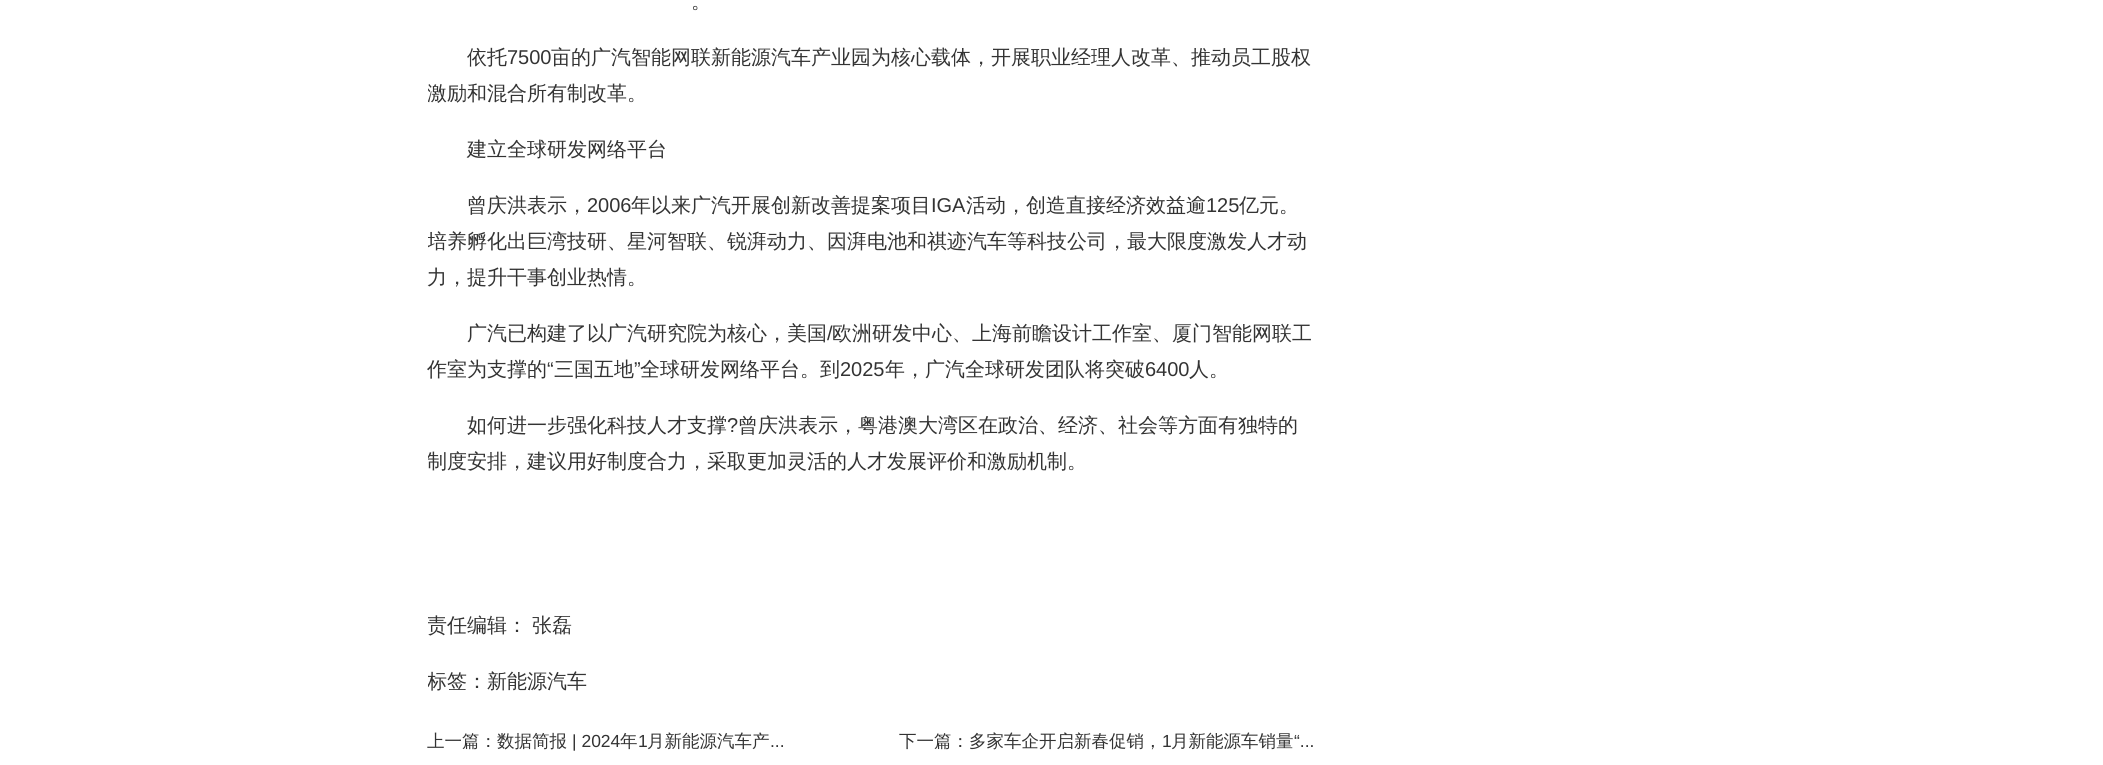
import math
import cairo

surface = cairo.ImageSurface(cairo.FORMAT_RGB24, 2103, 765)
ctx = cairo.Context(surface)
options = cairo.FontOptions()
options.set_hint_metrics(cairo.HINT_METRICS_OFF)
options.set_hint_style(cairo.HINT_STYLE_NONE)
ctx.set_font_options(options)
ctx.set_miter_limit(4)


ctx.set_source_rgb(1, 1, 1)
ctx.paint()
ctx.select_font_face("WenQuanYi Zen Hei Medium")
ctx.set_font_size(20)
ctx.set_source_rgb(0.2, 0.2, 0.2)
ctx.move_to(691, 8)
ctx.show_text("。")
ctx.move_to(467, 64)
ctx.show_text("依托")
ctx.select_font_face("Liberation Sans")
ctx.move_to(507, 64)
ctx.show_text("7500")
ctx.select_font_face("WenQuanYi Zen Hei Medium")
ctx.move_to(551, 64)
ctx.show_text("亩的广汽智能网联新能源汽车产业园为核心载体，开展职业经理人改革、推动员工股权")
ctx.save()
ctx.rectangle(428, 0, 1250, 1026)
ctx.clip()
ctx.move_to(427, 100)
ctx.show_text("激励和混合所有制改革。")
ctx.restore()
ctx.move_to(467, 156)
ctx.show_text("建立全球研发网络平台")
ctx.move_to(467, 212)
ctx.show_text("曾庆洪表示，")
ctx.select_font_face("Liberation Sans")
ctx.move_to(587, 212)
ctx.show_text("2006")
ctx.select_font_face("WenQuanYi Zen Hei Medium")
ctx.move_to(631, 212)
ctx.show_text("年以来广汽开展创新改善提案项目")
ctx.select_font_face("Liberation Sans")
ctx.move_to(931, 212)
ctx.show_text("IGA")
ctx.select_font_face("WenQuanYi Zen Hei Medium")
ctx.move_to(966, 212)
ctx.show_text("活动，创造直接经济效益逾")
ctx.select_font_face("Liberation Sans")
ctx.move_to(1206, 212)
ctx.show_text("125")
ctx.select_font_face("WenQuanYi Zen Hei Medium")
ctx.move_to(1239, 212)
ctx.show_text("亿元。")
ctx.save()
ctx.rectangle(428, 0, 1250, 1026)
ctx.clip()
ctx.move_to(427, 248)
ctx.show_text("培养孵化出巨湾技研、星河智联、锐湃动力、因湃电池和祺迹汽车等科技公司，最大限度激发人才动")
ctx.restore()
ctx.move_to(427, 284)
ctx.show_text("力，提升干事创业热情。")
ctx.move_to(467, 340)
ctx.show_text("广汽已构建了以广汽研究院为核心，美国")
ctx.select_font_face("Liberation Sans")
ctx.move_to(827, 340)
ctx.show_text("/")
ctx.select_font_face("WenQuanYi Zen Hei Medium")
ctx.move_to(832, 340)
ctx.show_text("欧洲研发中心、上海前瞻设计工作室、厦门智能网联工")
ctx.move_to(427, 376)
ctx.show_text("作室为支撑的")
ctx.select_font_face("Liberation Sans")
ctx.move_to(547, 376)
ctx.show_text("“")
ctx.select_font_face("WenQuanYi Zen Hei Medium")
ctx.move_to(554, 376)
ctx.show_text("三国五地")
ctx.select_font_face("Liberation Sans")
ctx.move_to(634, 376)
ctx.show_text("”")
ctx.select_font_face("WenQuanYi Zen Hei Medium")
ctx.move_to(640, 376)
ctx.show_text("全球研发网络平台。到")
ctx.select_font_face("Liberation Sans")
ctx.move_to(840, 376)
ctx.show_text("2025")
ctx.select_font_face("WenQuanYi Zen Hei Medium")
ctx.move_to(885, 376)
ctx.show_text("年，广汽全球研发团队将突破")
ctx.select_font_face("Liberation Sans")
ctx.move_to(1145, 376)
ctx.show_text("6400")
ctx.select_font_face("WenQuanYi Zen Hei Medium")
ctx.move_to(1189, 376)
ctx.show_text("人。")
ctx.move_to(467, 432)
ctx.show_text("如何进一步强化科技人才支撑")
ctx.select_font_face("Liberation Sans")
ctx.move_to(727, 432)
ctx.show_text("?")
ctx.select_font_face("WenQuanYi Zen Hei Medium")
ctx.move_to(738, 432)
ctx.show_text("曾庆洪表示，粤港澳大湾区在政治、经济、社会等方面有独特的")
ctx.save()
ctx.rectangle(428, 0, 1250, 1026)
ctx.clip()
ctx.move_to(427, 468)
ctx.show_text("制度安排，建议用好制度合力，采取更加灵活的人才发展评价和激励机制。")
ctx.move_to(427, 632)
ctx.show_text("责任编辑：")
ctx.restore()
ctx.move_to(532, 632)
ctx.show_text("张磊")
ctx.save()
ctx.rectangle(428, 0, 1250, 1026)
ctx.clip()
ctx.move_to(427, 688)
ctx.show_text("标签：新能源汽车")
ctx.restore()
ctx.set_font_size(17.5)
ctx.move_to(427, 747)
ctx.show_text("上一篇：数据简报")
ctx.select_font_face("Liberation Sans")
ctx.move_to(572, 747)
ctx.show_text("| 2024")
ctx.select_font_face("WenQuanYi Zen Hei Medium")
ctx.move_to(620, 747)
ctx.show_text("年")
ctx.select_font_face("Liberation Sans")
ctx.move_to(638, 747)
ctx.show_text("1")
ctx.select_font_face("WenQuanYi Zen Hei Medium")
ctx.move_to(647, 747)
ctx.show_text("月新能源汽车产")
ctx.select_font_face("Liberation Sans")
ctx.move_to(770, 747)
ctx.show_text("...")
ctx.select_font_face("WenQuanYi Zen Hei Medium")
ctx.move_to(899, 747)
ctx.show_text("下一篇：多家车企开启新春促销，")
ctx.select_font_face("Liberation Sans")
ctx.move_to(1162, 747)
ctx.show_text("1")
ctx.select_font_face("WenQuanYi Zen Hei Medium")
ctx.move_to(1171, 747)
ctx.show_text("月新能源车销量")
ctx.select_font_face("Liberation Sans")
ctx.move_to(1294, 747)
ctx.show_text("“...")
surface.write_to_png("page.png")
